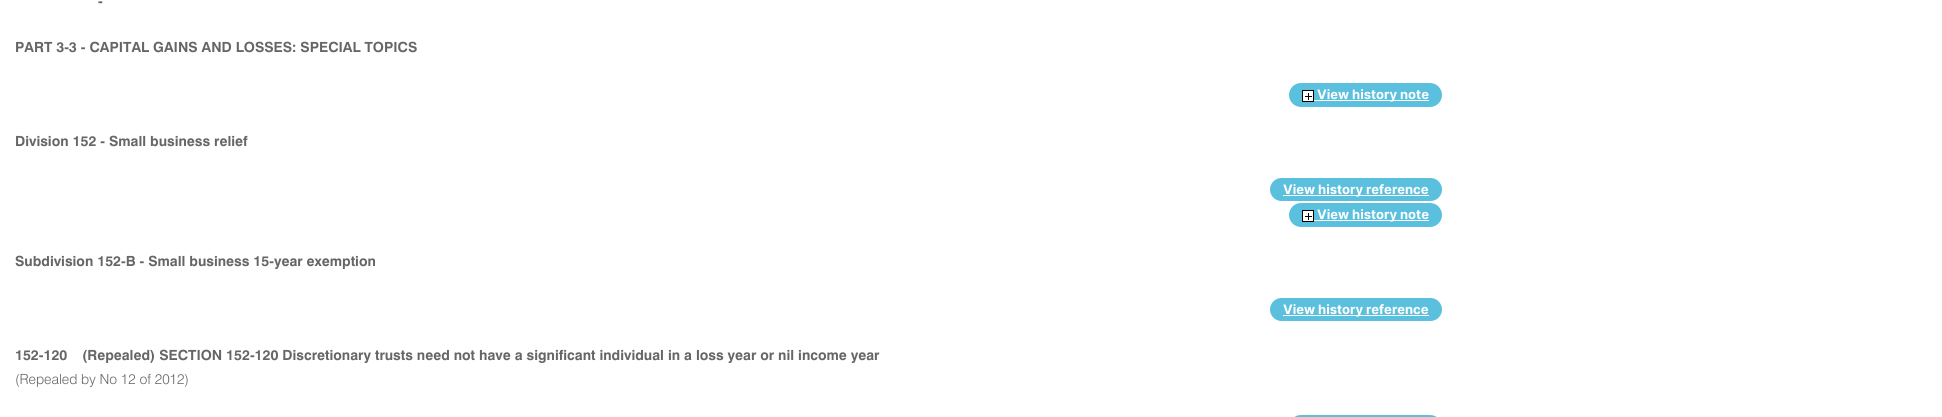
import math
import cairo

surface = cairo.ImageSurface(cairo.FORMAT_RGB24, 1942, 417)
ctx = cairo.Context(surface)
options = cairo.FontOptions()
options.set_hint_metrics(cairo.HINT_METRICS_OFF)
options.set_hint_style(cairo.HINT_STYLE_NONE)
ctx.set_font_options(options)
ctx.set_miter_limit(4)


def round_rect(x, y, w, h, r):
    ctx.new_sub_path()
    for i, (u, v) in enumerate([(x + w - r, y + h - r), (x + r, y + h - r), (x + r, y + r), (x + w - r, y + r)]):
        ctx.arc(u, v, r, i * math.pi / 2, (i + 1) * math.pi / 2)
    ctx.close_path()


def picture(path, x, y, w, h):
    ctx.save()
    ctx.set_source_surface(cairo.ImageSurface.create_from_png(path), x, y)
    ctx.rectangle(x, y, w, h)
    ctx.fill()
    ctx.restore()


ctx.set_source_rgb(1, 1, 1)
ctx.paint()
ctx.select_font_face("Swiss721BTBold", cairo.FONT_SLANT_NORMAL, cairo.FONT_WEIGHT_BOLD)
ctx.set_font_size(14)
ctx.set_source_rgb(0.4, 0.4, 0.4)
ctx.move_to(98, 6)
ctx.show_text("-")
ctx.move_to(15, 52)
ctx.show_text("PART 3-3 - CAPITAL GAINS AND LOSSES: SPECIAL TOPICS")
ctx.set_source_rgb(0.357, 0.753, 0.871)
round_rect(1289, 83, 153, 24, 12)
ctx.fill()
picture("img1.png", 1302, 90, 12, 12)
ctx.set_source_rgb(1, 1, 1)
ctx.rectangle(1314, 100, 115, 1)
ctx.fill()
ctx.select_font_face("Inter", cairo.FONT_SLANT_NORMAL, cairo.FONT_WEIGHT_BOLD)
ctx.set_font_size(13)
ctx.move_to(1317, 99)
ctx.show_text("View history note")
ctx.select_font_face("Swiss721BTBold", cairo.FONT_SLANT_NORMAL, cairo.FONT_WEIGHT_BOLD)
ctx.set_font_size(14)
ctx.set_source_rgb(0.4, 0.4, 0.4)
ctx.move_to(15, 146)
ctx.show_text("Division 152 - Small business relief")
ctx.set_source_rgb(0.357, 0.753, 0.871)
round_rect(1270, 178, 172, 23, 11.5)
ctx.fill()
ctx.set_source_rgb(1, 1, 1)
ctx.rectangle(1283, 195, 146, 1)
ctx.fill()
ctx.select_font_face("Inter", cairo.FONT_SLANT_NORMAL, cairo.FONT_WEIGHT_BOLD)
ctx.set_font_size(13)
ctx.move_to(1283, 194)
ctx.show_text("View history reference")
ctx.set_source_rgb(0.357, 0.753, 0.871)
round_rect(1289, 203, 153, 24, 12)
ctx.fill()
picture("img1.png", 1302, 210, 12, 12)
ctx.set_source_rgb(1, 1, 1)
ctx.rectangle(1314, 220, 115, 1)
ctx.fill()
ctx.move_to(1317, 219)
ctx.show_text("View history note")
ctx.select_font_face("Swiss721BTBold", cairo.FONT_SLANT_NORMAL, cairo.FONT_WEIGHT_BOLD)
ctx.set_font_size(14)
ctx.set_source_rgb(0.4, 0.4, 0.4)
ctx.move_to(15, 266)
ctx.show_text("Subdivision 152-B - Small business 15-year exemption")
ctx.set_source_rgb(0.357, 0.753, 0.871)
round_rect(1270, 298, 172, 23, 11.5)
ctx.fill()
ctx.set_source_rgb(1, 1, 1)
ctx.rectangle(1283, 315, 146, 1)
ctx.fill()
ctx.select_font_face("Inter", cairo.FONT_SLANT_NORMAL, cairo.FONT_WEIGHT_BOLD)
ctx.set_font_size(13)
ctx.move_to(1283, 314)
ctx.show_text("View history reference")
ctx.select_font_face("Swiss721BTBold", cairo.FONT_SLANT_NORMAL, cairo.FONT_WEIGHT_BOLD)
ctx.set_font_size(14)
ctx.set_source_rgb(0.4, 0.4, 0.4)
ctx.move_to(15, 360)
ctx.show_text("152-120")
ctx.move_to(82, 360)
ctx.show_text("(Repealed) SECTION 152-120 Discretionary trusts need not have a significant individual in a loss year or nil income year")
ctx.select_font_face("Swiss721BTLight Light")
ctx.move_to(15, 384)
ctx.show_text("(Repealed by No 12 of 2012)")
ctx.set_source_rgb(0.357, 0.753, 0.871)
round_rect(1289, 415, 153, 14, 12)
ctx.fill()
surface.write_to_png("page.png")
